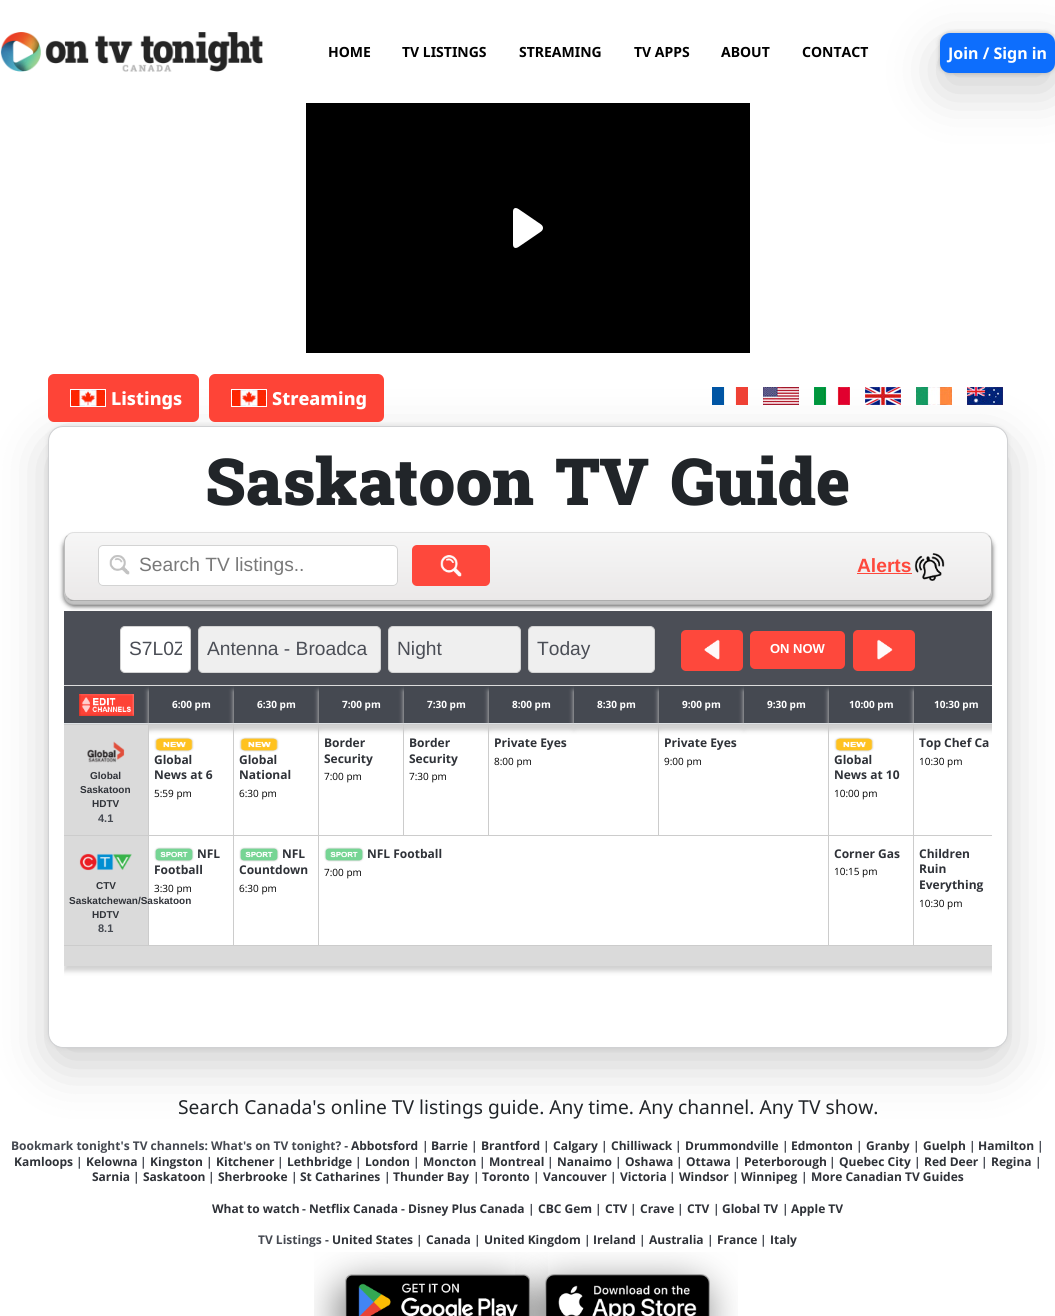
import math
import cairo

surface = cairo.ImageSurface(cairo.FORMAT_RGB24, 1055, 1316)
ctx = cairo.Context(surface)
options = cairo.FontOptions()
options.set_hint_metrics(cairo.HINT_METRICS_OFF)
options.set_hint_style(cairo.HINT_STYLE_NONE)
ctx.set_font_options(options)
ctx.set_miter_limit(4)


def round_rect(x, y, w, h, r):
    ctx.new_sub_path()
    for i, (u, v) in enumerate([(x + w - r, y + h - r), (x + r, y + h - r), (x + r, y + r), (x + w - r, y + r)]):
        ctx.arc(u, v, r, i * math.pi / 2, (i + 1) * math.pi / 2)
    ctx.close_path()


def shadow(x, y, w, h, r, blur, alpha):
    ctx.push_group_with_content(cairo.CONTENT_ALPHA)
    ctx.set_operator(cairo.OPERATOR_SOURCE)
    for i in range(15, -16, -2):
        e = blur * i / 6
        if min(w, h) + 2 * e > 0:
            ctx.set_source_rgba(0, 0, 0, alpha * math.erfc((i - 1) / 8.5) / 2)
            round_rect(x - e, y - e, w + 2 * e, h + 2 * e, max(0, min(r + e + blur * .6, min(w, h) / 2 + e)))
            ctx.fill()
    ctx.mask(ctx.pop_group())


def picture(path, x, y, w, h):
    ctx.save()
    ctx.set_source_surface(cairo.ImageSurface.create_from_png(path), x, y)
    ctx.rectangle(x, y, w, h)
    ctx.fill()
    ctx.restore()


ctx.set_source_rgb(1, 1, 1)
ctx.paint()
picture("img1.png", 0, 32, 263, 40)
ctx.select_font_face("Noto Sans", cairo.FONT_SLANT_NORMAL, cairo.FONT_WEIGHT_BOLD)
ctx.set_font_size(14)
ctx.set_source_rgb(0, 0, 0)
ctx.move_to(328, 57)
ctx.show_text("HOME")
ctx.move_to(402, 57)
ctx.show_text("TV LISTINGS")
ctx.move_to(519, 57)
ctx.show_text("STREAMING")
ctx.move_to(634, 57)
ctx.show_text("TV APPS")
ctx.move_to(721, 57)
ctx.show_text("ABOUT")
ctx.move_to(802, 57)
ctx.show_text("CONTACT")
ctx.set_source_rgb(0, 0, 0)
shadow(940, 50, 115, 40, 10, 25, 0.19)
shadow(940, 33, 115, 40, 10, 2.5, 0.24)
ctx.set_source_rgb(0.051, 0.431, 0.992)
round_rect(940, 33, 115, 40, 10)
ctx.fill()
ctx.set_font_size(16)
ctx.set_source_rgb(1, 1, 1)
ctx.move_to(948, 59)
ctx.show_text("Join / Sign in")
ctx.set_source_rgb(0, 0, 0)
ctx.rectangle(306, 103, 444, 250)
ctx.fill()
picture("img2.png", 513, 208, 30, 40)
ctx.set_source_rgb(0, 0, 0)
shadow(48, 443, 960, 622, 15, 25, 0.19)
shadow(48, 426, 960, 622, 15, 2.5, 0.09)
ctx.set_source_rgb(0.996, 0.267, 0.216)
round_rect(48, 374, 151, 48, 6)
ctx.fill()
ctx.rectangle(70.5, 389.5, 35, 17)
ctx.set_source_rgb(1, 1, 1)
ctx.set_line_width(1)
ctx.stroke()
picture("img3.png", 71, 390, 34, 16)
ctx.select_font_face("Noto Sans ExtraBold")
ctx.set_font_size(18)
ctx.move_to(111, 405)
ctx.show_text("Listings")
ctx.set_source_rgb(0.996, 0.267, 0.216)
round_rect(209, 374, 175, 48, 6)
ctx.fill()
ctx.rectangle(231.5, 389.5, 35, 17)
ctx.set_source_rgb(1, 1, 1)
ctx.stroke()
picture("img3.png", 232, 390, 34, 16)
ctx.move_to(272, 405)
ctx.show_text("Streaming")
picture("img4.png", 712, 387, 36, 18)
picture("img5.png", 763, 387, 36, 18)
picture("img6.png", 814, 387, 36, 18)
picture("img7.png", 865, 387, 36, 18)
picture("img8.png", 916, 387, 36, 18)
picture("img9.png", 967, 387, 36, 18)
round_rect(48.5, 426.5, 959, 621, 14.5)
ctx.fill_preserve()
ctx.set_source_rgb(0.816, 0.82, 0.827)
ctx.stroke()
ctx.select_font_face("Suwannaphum Black")
ctx.set_font_size(65)
ctx.set_source_rgb(0.129, 0.145, 0.161)
ctx.move_to(205, 505)
ctx.show_text("Saskatoon TV Guide")
ctx.set_source_rgb(0.29, 0.29, 0.29)
shadow(64, 537, 928, 69, 10, 2.5, 1)
ctx.set_source_rgb(0.678, 0.678, 0.678)
ctx.new_path()
ctx.move_to(64, 591)
ctx.curve_to(64, 598, 65, 605, 74, 605)
ctx.line_to(982, 605)
ctx.curve_to(991, 605, 992, 598, 992, 591)
ctx.curve_to(992, 597, 988, 601, 982, 601)
ctx.line_to(74, 601)
ctx.curve_to(68, 601, 64, 597, 64, 591)
ctx.close_path()
ctx.fill()
ctx.set_source_rgb(0.741, 0.741, 0.741)
ctx.new_path()
ctx.move_to(64, 591)
ctx.line_to(64, 594)
ctx.curve_to(64, 600, 68, 604, 74, 604)
ctx.line_to(982, 604)
ctx.curve_to(988, 604, 992, 600, 992, 594)
ctx.line_to(992, 591)
ctx.curve_to(992, 597, 988, 601, 982, 601)
ctx.line_to(74, 601)
ctx.curve_to(68, 601, 64, 597, 64, 591)
ctx.close_path()
ctx.fill()
ctx.set_source_rgb(1, 1, 1)
shadow(64, 535, 928, 69, 10, 1.5, 0.1)
ctx.save()
round_rect(64, 532, 928, 69, 10)
ctx.clip()
gradient = cairo.LinearGradient(528, 533, 528, 600)
gradient.add_color_stop_rgba(0, 0.965, 0.965, 0.965, 1)
gradient.add_color_stop_rgba(1, 0.922, 0.914, 0.914, 1)
ctx.set_source(gradient)
ctx.rectangle(64, 533, 928, 67)
ctx.fill()
ctx.restore()
ctx.new_path()
ctx.move_to(67.5, 535.5)
ctx.curve_to(69, 533.5, 71.5, 532.5, 74, 532.5)
ctx.line_to(982, 532.5)
ctx.curve_to(984.5, 532.5, 987, 533.5, 988.5, 535.5)
ctx.set_source_rgb(0.875, 0.875, 0.875)
ctx.stroke()
ctx.new_path()
ctx.move_to(988.5, 535.5)
ctx.curve_to(990.5, 537, 991.5, 539.5, 991.5, 542)
ctx.line_to(991.5, 591)
ctx.curve_to(991.5, 593.5, 990.5, 596, 988.5, 597.5)
ctx.set_source_rgb(0.737, 0.737, 0.737)
ctx.stroke()
ctx.new_path()
ctx.move_to(988.5, 597.5)
ctx.curve_to(987, 599.5, 984.5, 600.5, 982, 600.5)
ctx.line_to(74, 600.5)
ctx.curve_to(71.5, 600.5, 69, 599.5, 67.5, 597.5)
ctx.set_source_rgb(0.678, 0.678, 0.678)
ctx.stroke()
ctx.new_path()
ctx.move_to(67.5, 597.5)
ctx.curve_to(65.5, 596, 64.5, 593.5, 64.5, 591)
ctx.line_to(64.5, 542)
ctx.curve_to(64.5, 539.5, 65.5, 537, 67.5, 535.5)
ctx.set_source_rgb(0.737, 0.737, 0.737)
ctx.stroke()
ctx.set_source_rgb(1, 1, 1)
round_rect(98, 545, 300, 41, 5)
ctx.fill()
picture("img10.png", 109, 555, 21, 20)
round_rect(98.5, 545.5, 299, 40, 4.5)
ctx.set_source_rgb(0.827, 0.827, 0.827)
ctx.stroke()
ctx.select_font_face("Liberation Sans")
ctx.set_font_size(19.2)
ctx.set_source_rgb(0.475, 0.475, 0.475)
ctx.move_to(139, 571)
ctx.show_text("Search TV listings..")
ctx.set_source_rgb(0.996, 0.282, 0.235)
round_rect(412, 545, 78, 41, 5)
ctx.fill()
picture("img11.png", 440, 555, 22, 22)
ctx.select_font_face("Liberation Sans", cairo.FONT_SLANT_NORMAL, cairo.FONT_WEIGHT_BOLD)
ctx.move_to(857, 572)
ctx.show_text("Alerts")
ctx.rectangle(857, 573, 55, 1)
ctx.fill()
picture("img12.png", 914, 553, 31, 28)
ctx.set_source_rgb(0.294, 0.306, 0.337)
ctx.rectangle(64, 611, 928, 74)
ctx.fill()
ctx.set_source_rgb(1, 1, 1)
round_rect(120.5, 626.5, 70, 46, 4.5)
ctx.fill_preserve()
ctx.set_source_rgb(0.827, 0.827, 0.827)
ctx.stroke()
ctx.save()
ctx.rectangle(129, 635, 53, 29)
ctx.clip()
ctx.select_font_face("Liberation Sans")
ctx.set_source_rgb(0.294, 0.306, 0.337)
ctx.move_to(129, 655)
ctx.show_text("S7L0Z")
ctx.restore()
ctx.set_source_rgb(0.937, 0.937, 0.937)
round_rect(198.5, 626.5, 182, 46, 4.5)
ctx.fill_preserve()
ctx.set_source_rgb(0.827, 0.827, 0.827)
ctx.stroke()
ctx.select_font_face("Liberation Sans")
ctx.set_source_rgb(0.294, 0.306, 0.337)
ctx.move_to(207, 655)
ctx.show_text("Antenna - Broadca")
ctx.set_source_rgb(0.937, 0.937, 0.937)
round_rect(388.5, 626.5, 132, 46, 4.5)
ctx.fill_preserve()
ctx.set_source_rgb(0.827, 0.827, 0.827)
ctx.stroke()
ctx.set_source_rgb(0.294, 0.306, 0.337)
ctx.move_to(397, 655)
ctx.show_text("Night")
ctx.set_source_rgb(0.937, 0.937, 0.937)
round_rect(528.5, 626.5, 126, 46, 4.5)
ctx.fill_preserve()
ctx.set_source_rgb(0.827, 0.827, 0.827)
ctx.stroke()
ctx.set_source_rgb(0.294, 0.306, 0.337)
ctx.move_to(537, 655)
ctx.show_text("Today")
ctx.set_source_rgb(0.996, 0.282, 0.235)
round_rect(681, 630, 62, 41, 5)
ctx.fill()
picture("img13.png", 704, 639, 16, 21)
round_rect(750, 631, 95, 38, 5)
ctx.fill()
ctx.select_font_face("Liberation Sans", cairo.FONT_SLANT_NORMAL, cairo.FONT_WEIGHT_BOLD)
ctx.set_font_size(13)
ctx.set_source_rgb(1, 1, 1)
ctx.move_to(770, 653)
ctx.show_text("ON NOW")
ctx.set_source_rgb(0.996, 0.282, 0.235)
round_rect(853, 630, 62, 41, 5)
ctx.fill()
picture("img14.png", 877, 639, 16, 21)
ctx.set_source_rgb(0.867, 0.867, 0.867)
ctx.rectangle(64, 685, 928, 1)
ctx.fill()
ctx.save()
ctx.rectangle(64, 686, 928, 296)
ctx.clip()
ctx.rectangle(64, 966, 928, 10)
ctx.clip()
ctx.set_source_rgb(0.816, 0.816, 0.816)
shadow(64, 691, 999, 280, 0, 2.5, 1)
ctx.restore()
ctx.save()
ctx.rectangle(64, 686, 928, 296)
ctx.clip()
ctx.set_source_rgb(0.816, 0.816, 0.816)
shadow(64, 691, 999, 38, 0, 2.5, 1)
shadow(64, 691, 85, 38, 0, 2.5, 1)
ctx.restore()
ctx.set_source_rgb(0.271, 0.286, 0.318)
ctx.rectangle(64, 686, 85, 37)
ctx.fill()
ctx.set_source_rgb(0.871, 0.886, 0.902)
ctx.rectangle(64, 723, 85, 1)
ctx.fill()
picture("img15.png", 79, 694, 55, 22)
ctx.set_source_rgb(0.816, 0.816, 0.816)
shadow(149, 691, 85, 38, 0, 2.5, 1)
ctx.set_source_rgb(0.271, 0.286, 0.318)
ctx.rectangle(149, 686, 85, 37)
ctx.fill()
ctx.set_source_rgb(0.871, 0.886, 0.902)
ctx.rectangle(149, 723, 85, 1)
ctx.fill()
ctx.select_font_face("Open Sans", cairo.FONT_SLANT_NORMAL, cairo.FONT_WEIGHT_BOLD)
ctx.set_font_size(10)
ctx.set_source_rgb(1, 1, 1)
ctx.move_to(172, 708)
ctx.show_text("6:00 pm")
ctx.set_source_rgb(0.816, 0.816, 0.816)
shadow(234, 691, 85, 38, 0, 2.5, 1)
ctx.set_source_rgb(0.271, 0.286, 0.318)
ctx.rectangle(234, 686, 85, 37)
ctx.fill()
ctx.set_source_rgb(0.871, 0.886, 0.902)
ctx.rectangle(234, 723, 85, 1)
ctx.fill()
ctx.set_source_rgb(1, 1, 1)
ctx.move_to(257, 708)
ctx.show_text("6:30 pm")
ctx.set_source_rgb(0.816, 0.816, 0.816)
shadow(319, 691, 85, 38, 0, 2.5, 1)
ctx.set_source_rgb(0.271, 0.286, 0.318)
ctx.rectangle(319, 686, 85, 37)
ctx.fill()
ctx.set_source_rgb(0.871, 0.886, 0.902)
ctx.rectangle(319, 723, 85, 1)
ctx.fill()
ctx.set_source_rgb(1, 1, 1)
ctx.move_to(342, 708)
ctx.show_text("7:00 pm")
ctx.set_source_rgb(0.816, 0.816, 0.816)
shadow(404, 691, 85, 38, 0, 2.5, 1)
ctx.set_source_rgb(0.271, 0.286, 0.318)
ctx.rectangle(404, 686, 85, 37)
ctx.fill()
ctx.set_source_rgb(0.871, 0.886, 0.902)
ctx.rectangle(404, 723, 85, 1)
ctx.fill()
ctx.set_source_rgb(1, 1, 1)
ctx.move_to(427, 708)
ctx.show_text("7:30 pm")
ctx.set_source_rgb(0.816, 0.816, 0.816)
shadow(489, 691, 85, 38, 0, 2.5, 1)
ctx.set_source_rgb(0.271, 0.286, 0.318)
ctx.rectangle(489, 686, 85, 37)
ctx.fill()
ctx.set_source_rgb(0.871, 0.886, 0.902)
ctx.rectangle(489, 723, 85, 1)
ctx.fill()
ctx.set_source_rgb(1, 1, 1)
ctx.move_to(512, 708)
ctx.show_text("8:00 pm")
ctx.set_source_rgb(0.816, 0.816, 0.816)
shadow(574, 691, 85, 38, 0, 2.5, 1)
ctx.set_source_rgb(0.271, 0.286, 0.318)
ctx.rectangle(574, 686, 85, 37)
ctx.fill()
ctx.set_source_rgb(0.871, 0.886, 0.902)
ctx.rectangle(574, 723, 85, 1)
ctx.fill()
ctx.set_source_rgb(1, 1, 1)
ctx.move_to(597, 708)
ctx.show_text("8:30 pm")
ctx.set_source_rgb(0.816, 0.816, 0.816)
shadow(659, 691, 85, 38, 0, 2.5, 1)
ctx.set_source_rgb(0.271, 0.286, 0.318)
ctx.rectangle(659, 686, 85, 37)
ctx.fill()
ctx.set_source_rgb(0.871, 0.886, 0.902)
ctx.rectangle(659, 723, 85, 1)
ctx.fill()
ctx.set_source_rgb(1, 1, 1)
ctx.move_to(682, 708)
ctx.show_text("9:00 pm")
ctx.set_source_rgb(0.816, 0.816, 0.816)
shadow(744, 691, 85, 38, 0, 2.5, 1)
ctx.set_source_rgb(0.271, 0.286, 0.318)
ctx.rectangle(744, 686, 85, 37)
ctx.fill()
ctx.set_source_rgb(0.871, 0.886, 0.902)
ctx.rectangle(744, 723, 85, 1)
ctx.fill()
ctx.set_source_rgb(1, 1, 1)
ctx.move_to(767, 708)
ctx.show_text("9:30 pm")
ctx.set_source_rgb(0.816, 0.816, 0.816)
shadow(829, 691, 85, 38, 0, 2.5, 1)
ctx.set_source_rgb(0.271, 0.286, 0.318)
ctx.rectangle(829, 686, 85, 37)
ctx.fill()
ctx.set_source_rgb(0.871, 0.886, 0.902)
ctx.rectangle(829, 723, 85, 1)
ctx.fill()
ctx.set_source_rgb(1, 1, 1)
ctx.move_to(849, 708)
ctx.show_text("10:00 pm")
ctx.save()
ctx.rectangle(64, 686, 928, 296)
ctx.clip()
ctx.set_source_rgb(0.816, 0.816, 0.816)
shadow(914, 691, 85, 38, 0, 2.5, 1)
ctx.restore()
ctx.set_source_rgb(0.271, 0.286, 0.318)
ctx.rectangle(914, 686, 78, 37)
ctx.fill()
ctx.set_source_rgb(0.871, 0.886, 0.902)
ctx.rectangle(914, 723, 78, 1)
ctx.fill()
ctx.set_source_rgb(1, 1, 1)
ctx.move_to(934, 708)
ctx.show_text("10:30 pm")
ctx.set_source_rgb(0.855, 0.855, 0.855)
ctx.rectangle(64, 725, 84, 110)
ctx.fill()
ctx.set_source_rgb(0.8, 0.8, 0.8)
ctx.rectangle(64, 724, 928, 1)
ctx.fill()
ctx.rectangle(148, 724, 1, 111)
ctx.fill()
picture("img16.png", 87, 741, 38, 22)
ctx.select_font_face("Liberation Sans", cairo.FONT_SLANT_NORMAL, cairo.FONT_WEIGHT_BOLD)
ctx.set_source_rgb(0.184, 0.196, 0.22)
ctx.move_to(90, 779)
ctx.show_text("Global")
ctx.move_to(80, 793)
ctx.show_text("Saskatoon")
ctx.move_to(92, 807)
ctx.show_text("HDTV")
ctx.set_font_size(11)
ctx.set_source_rgb(0.271, 0.286, 0.318)
ctx.move_to(98, 822)
ctx.show_text("4.1")
ctx.set_source_rgb(0.8, 0.8, 0.8)
ctx.rectangle(233, 724, 1, 111)
ctx.fill()
picture("img17.png", 154, 737, 40, 15)
ctx.select_font_face("Open Sans", cairo.FONT_SLANT_NORMAL, cairo.FONT_WEIGHT_BOLD)
ctx.set_font_size(12)
ctx.set_source_rgb(0.184, 0.196, 0.22)
ctx.move_to(154, 764)
ctx.show_text("Global")
ctx.move_to(154, 779)
ctx.show_text("News at 6")
ctx.select_font_face("Open Sans")
ctx.set_font_size(10)
ctx.set_source_rgb(0, 0, 0)
ctx.move_to(154, 797)
ctx.show_text("5:59 pm")
ctx.set_source_rgb(0.8, 0.8, 0.8)
ctx.rectangle(318, 724, 1, 111)
ctx.fill()
picture("img17.png", 239, 737, 40, 15)
ctx.select_font_face("Open Sans", cairo.FONT_SLANT_NORMAL, cairo.FONT_WEIGHT_BOLD)
ctx.set_font_size(12)
ctx.set_source_rgb(0.184, 0.196, 0.22)
ctx.move_to(239, 764)
ctx.show_text("Global")
ctx.move_to(239, 779)
ctx.show_text("National")
ctx.select_font_face("Open Sans")
ctx.set_font_size(10)
ctx.set_source_rgb(0, 0, 0)
ctx.move_to(239, 797)
ctx.show_text("6:30 pm")
ctx.set_source_rgb(0.8, 0.8, 0.8)
ctx.rectangle(403, 724, 1, 111)
ctx.fill()
ctx.select_font_face("Open Sans", cairo.FONT_SLANT_NORMAL, cairo.FONT_WEIGHT_BOLD)
ctx.set_font_size(12)
ctx.set_source_rgb(0.184, 0.196, 0.22)
ctx.move_to(324, 747)
ctx.show_text("Border")
ctx.move_to(324, 763)
ctx.show_text("Security")
ctx.select_font_face("Open Sans")
ctx.set_font_size(10)
ctx.set_source_rgb(0, 0, 0)
ctx.move_to(324, 780)
ctx.show_text("7:00 pm")
ctx.set_source_rgb(0.8, 0.8, 0.8)
ctx.rectangle(488, 724, 1, 111)
ctx.fill()
ctx.select_font_face("Open Sans", cairo.FONT_SLANT_NORMAL, cairo.FONT_WEIGHT_BOLD)
ctx.set_font_size(12)
ctx.set_source_rgb(0.184, 0.196, 0.22)
ctx.move_to(409, 747)
ctx.show_text("Border")
ctx.move_to(409, 763)
ctx.show_text("Security")
ctx.select_font_face("Open Sans")
ctx.set_font_size(10)
ctx.set_source_rgb(0, 0, 0)
ctx.move_to(409, 780)
ctx.show_text("7:30 pm")
ctx.set_source_rgb(0.8, 0.8, 0.8)
ctx.rectangle(658, 724, 1, 111)
ctx.fill()
ctx.select_font_face("Open Sans", cairo.FONT_SLANT_NORMAL, cairo.FONT_WEIGHT_BOLD)
ctx.set_font_size(12)
ctx.set_source_rgb(0.184, 0.196, 0.22)
ctx.move_to(494, 747)
ctx.show_text("Private Eyes")
ctx.select_font_face("Open Sans")
ctx.set_font_size(10)
ctx.set_source_rgb(0, 0, 0)
ctx.move_to(494, 765)
ctx.show_text("8:00 pm")
ctx.set_source_rgb(0.8, 0.8, 0.8)
ctx.rectangle(828, 724, 1, 111)
ctx.fill()
ctx.select_font_face("Open Sans", cairo.FONT_SLANT_NORMAL, cairo.FONT_WEIGHT_BOLD)
ctx.set_font_size(12)
ctx.set_source_rgb(0.184, 0.196, 0.22)
ctx.move_to(664, 747)
ctx.show_text("Private Eyes")
ctx.select_font_face("Open Sans")
ctx.set_font_size(10)
ctx.set_source_rgb(0, 0, 0)
ctx.move_to(664, 765)
ctx.show_text("9:00 pm")
ctx.set_source_rgb(0.8, 0.8, 0.8)
ctx.rectangle(913, 724, 1, 111)
ctx.fill()
picture("img17.png", 834, 737, 40, 15)
ctx.select_font_face("Open Sans", cairo.FONT_SLANT_NORMAL, cairo.FONT_WEIGHT_BOLD)
ctx.set_font_size(12)
ctx.set_source_rgb(0.184, 0.196, 0.22)
ctx.move_to(834, 764)
ctx.show_text("Global")
ctx.move_to(834, 779)
ctx.show_text("News at 10")
ctx.select_font_face("Open Sans")
ctx.set_font_size(10)
ctx.set_source_rgb(0, 0, 0)
ctx.move_to(834, 797)
ctx.show_text("10:00 pm")
ctx.select_font_face("Open Sans", cairo.FONT_SLANT_NORMAL, cairo.FONT_WEIGHT_BOLD)
ctx.set_font_size(12)
ctx.set_source_rgb(0.184, 0.196, 0.22)
ctx.move_to(919, 747)
ctx.show_text("Top Chef Ca")
ctx.select_font_face("Open Sans")
ctx.set_font_size(10)
ctx.set_source_rgb(0, 0, 0)
ctx.move_to(919, 765)
ctx.show_text("10:30 pm")
ctx.set_source_rgb(0.8, 0.8, 0.8)
ctx.rectangle(64, 835, 928, 1)
ctx.fill()
ctx.rectangle(233, 835, 1, 110)
ctx.fill()
picture("img18.png", 154, 847, 40, 15)
ctx.select_font_face("Open Sans", cairo.FONT_SLANT_NORMAL, cairo.FONT_WEIGHT_BOLD)
ctx.set_font_size(12)
ctx.set_source_rgb(0.184, 0.196, 0.22)
ctx.move_to(197, 858)
ctx.show_text("NFL")
ctx.move_to(154, 874)
ctx.show_text("Football")
ctx.select_font_face("Open Sans")
ctx.set_font_size(10)
ctx.set_source_rgb(0, 0, 0)
ctx.move_to(154, 892)
ctx.show_text("3:30 pm")
ctx.set_source_rgb(0.8, 0.8, 0.8)
ctx.rectangle(318, 835, 1, 110)
ctx.fill()
picture("img19.png", 239, 847, 40, 15)
ctx.select_font_face("Open Sans", cairo.FONT_SLANT_NORMAL, cairo.FONT_WEIGHT_BOLD)
ctx.set_font_size(12)
ctx.set_source_rgb(0.184, 0.196, 0.22)
ctx.move_to(282, 858)
ctx.show_text("NFL")
ctx.move_to(239, 874)
ctx.show_text("Countdown")
ctx.select_font_face("Open Sans")
ctx.set_font_size(10)
ctx.set_source_rgb(0, 0, 0)
ctx.move_to(239, 892)
ctx.show_text("6:30 pm")
ctx.set_source_rgb(0.8, 0.8, 0.8)
ctx.rectangle(828, 835, 1, 110)
ctx.fill()
picture("img20.png", 324, 847, 40, 15)
ctx.select_font_face("Open Sans", cairo.FONT_SLANT_NORMAL, cairo.FONT_WEIGHT_BOLD)
ctx.set_font_size(12)
ctx.set_source_rgb(0.184, 0.196, 0.22)
ctx.move_to(367, 858)
ctx.show_text("NFL Football")
ctx.select_font_face("Open Sans")
ctx.set_font_size(10)
ctx.set_source_rgb(0, 0, 0)
ctx.move_to(324, 876)
ctx.show_text("7:00 pm")
ctx.set_source_rgb(0.8, 0.8, 0.8)
ctx.rectangle(913, 835, 1, 110)
ctx.fill()
ctx.select_font_face("Open Sans", cairo.FONT_SLANT_NORMAL, cairo.FONT_WEIGHT_BOLD)
ctx.set_font_size(12)
ctx.set_source_rgb(0.184, 0.196, 0.22)
ctx.move_to(834, 858)
ctx.show_text("Corner Gas")
ctx.select_font_face("Open Sans")
ctx.set_font_size(10)
ctx.set_source_rgb(0, 0, 0)
ctx.move_to(834, 875)
ctx.show_text("10:15 pm")
ctx.select_font_face("Open Sans", cairo.FONT_SLANT_NORMAL, cairo.FONT_WEIGHT_BOLD)
ctx.set_font_size(12)
ctx.set_source_rgb(0.184, 0.196, 0.22)
ctx.move_to(919, 858)
ctx.show_text("Children")
ctx.move_to(919, 873)
ctx.show_text("Ruin")
ctx.move_to(919, 889)
ctx.show_text("Everything")
ctx.select_font_face("Open Sans")
ctx.set_font_size(10)
ctx.set_source_rgb(0, 0, 0)
ctx.move_to(919, 907)
ctx.show_text("10:30 pm")
ctx.set_source_rgb(0.855, 0.855, 0.855)
ctx.rectangle(64, 836, 84, 109)
ctx.fill()
ctx.set_source_rgb(0.8, 0.8, 0.8)
ctx.rectangle(148, 835, 1, 110)
ctx.fill()
picture("img21.png", 79, 853, 53, 18)
ctx.select_font_face("Liberation Sans", cairo.FONT_SLANT_NORMAL, cairo.FONT_WEIGHT_BOLD)
ctx.set_source_rgb(0.184, 0.196, 0.22)
ctx.move_to(96, 889)
ctx.show_text("CTV")
ctx.move_to(69, 904)
ctx.show_text("Saskatchewan/Saskatoon")
ctx.move_to(92, 918)
ctx.show_text("HDTV")
ctx.set_font_size(11)
ctx.set_source_rgb(0.271, 0.286, 0.318)
ctx.move_to(98, 932)
ctx.show_text("8.1")
ctx.set_source_rgb(0.855, 0.855, 0.855)
ctx.rectangle(64, 946, 928, 20)
ctx.fill()
ctx.set_source_rgb(0.8, 0.8, 0.8)
ctx.rectangle(64, 945, 928, 1)
ctx.fill()
ctx.select_font_face("Noto Sans")
ctx.set_font_size(19.2)
ctx.set_source_rgb(0.129, 0.145, 0.161)
ctx.move_to(178, 1114)
ctx.show_text("Search Canada's online TV listings guide. Any time. Any channel. Any TV show.")
ctx.select_font_face("Open Sans", cairo.FONT_SLANT_NORMAL, cairo.FONT_WEIGHT_BOLD)
ctx.set_font_size(12)
ctx.set_source_rgb(0.271, 0.286, 0.318)
ctx.move_to(11, 1150)
ctx.show_text("Bookmark tonight's TV channels: What's on TV tonight? -")
ctx.set_source_rgb(0.184, 0.196, 0.22)
ctx.move_to(351, 1150)
ctx.show_text("Abbotsford")
ctx.set_source_rgb(0.271, 0.286, 0.318)
ctx.move_to(422, 1150)
ctx.show_text("|")
ctx.set_source_rgb(0.184, 0.196, 0.22)
ctx.move_to(431, 1150)
ctx.show_text("Barrie")
ctx.set_source_rgb(0.271, 0.286, 0.318)
ctx.move_to(471, 1150)
ctx.show_text("|")
ctx.set_source_rgb(0.184, 0.196, 0.22)
ctx.move_to(481, 1150)
ctx.show_text("Brantford")
ctx.set_source_rgb(0.271, 0.286, 0.318)
ctx.move_to(543, 1150)
ctx.show_text("|")
ctx.set_source_rgb(0.184, 0.196, 0.22)
ctx.move_to(553, 1150)
ctx.show_text("Calgary")
ctx.set_source_rgb(0.271, 0.286, 0.318)
ctx.move_to(601, 1150)
ctx.show_text("|")
ctx.set_source_rgb(0.184, 0.196, 0.22)
ctx.move_to(611, 1150)
ctx.show_text("Chilliwack")
ctx.set_source_rgb(0.271, 0.286, 0.318)
ctx.move_to(675, 1150)
ctx.show_text("|")
ctx.set_source_rgb(0.184, 0.196, 0.22)
ctx.move_to(685, 1150)
ctx.show_text("Drummondville")
ctx.set_source_rgb(0.271, 0.286, 0.318)
ctx.move_to(782, 1150)
ctx.show_text("|")
ctx.set_source_rgb(0.184, 0.196, 0.22)
ctx.move_to(791, 1150)
ctx.show_text("Edmonton")
ctx.set_source_rgb(0.271, 0.286, 0.318)
ctx.move_to(856, 1150)
ctx.show_text("|")
ctx.set_source_rgb(0.184, 0.196, 0.22)
ctx.move_to(866, 1150)
ctx.show_text("Granby")
ctx.set_source_rgb(0.271, 0.286, 0.318)
ctx.move_to(913, 1150)
ctx.show_text("|")
ctx.set_source_rgb(0.184, 0.196, 0.22)
ctx.move_to(923, 1150)
ctx.show_text("Guelph")
ctx.set_source_rgb(0.271, 0.286, 0.318)
ctx.move_to(969, 1150)
ctx.show_text("|")
ctx.set_source_rgb(0.184, 0.196, 0.22)
ctx.move_to(978, 1150)
ctx.show_text("Hamilton")
ctx.set_source_rgb(0.271, 0.286, 0.318)
ctx.move_to(1037, 1150)
ctx.show_text("|")
ctx.set_source_rgb(0.184, 0.196, 0.22)
ctx.move_to(14, 1166)
ctx.show_text("Kamloops")
ctx.set_source_rgb(0.271, 0.286, 0.318)
ctx.move_to(76, 1166)
ctx.show_text("|")
ctx.set_source_rgb(0.184, 0.196, 0.22)
ctx.move_to(86, 1166)
ctx.show_text("Kelowna")
ctx.set_source_rgb(0.271, 0.286, 0.318)
ctx.move_to(140, 1166)
ctx.show_text("|")
ctx.set_source_rgb(0.184, 0.196, 0.22)
ctx.move_to(150, 1166)
ctx.show_text("Kingston")
ctx.set_source_rgb(0.271, 0.286, 0.318)
ctx.move_to(206, 1166)
ctx.show_text("|")
ctx.set_source_rgb(0.184, 0.196, 0.22)
ctx.move_to(216, 1166)
ctx.show_text("Kitchener")
ctx.set_source_rgb(0.271, 0.286, 0.318)
ctx.move_to(277, 1166)
ctx.show_text("|")
ctx.set_source_rgb(0.184, 0.196, 0.22)
ctx.move_to(287, 1166)
ctx.show_text("Lethbridge")
ctx.set_source_rgb(0.271, 0.286, 0.318)
ctx.move_to(355, 1166)
ctx.show_text("|")
ctx.set_source_rgb(0.184, 0.196, 0.22)
ctx.move_to(365, 1166)
ctx.show_text("London")
ctx.set_source_rgb(0.271, 0.286, 0.318)
ctx.move_to(413, 1166)
ctx.show_text("|")
ctx.set_source_rgb(0.184, 0.196, 0.22)
ctx.move_to(423, 1166)
ctx.show_text("Moncton")
ctx.set_source_rgb(0.271, 0.286, 0.318)
ctx.move_to(479, 1166)
ctx.show_text("|")
ctx.set_source_rgb(0.184, 0.196, 0.22)
ctx.move_to(489, 1166)
ctx.show_text("Montreal")
ctx.set_source_rgb(0.271, 0.286, 0.318)
ctx.move_to(547, 1166)
ctx.show_text("|")
ctx.set_source_rgb(0.184, 0.196, 0.22)
ctx.move_to(557, 1166)
ctx.show_text("Nanaimo")
ctx.set_source_rgb(0.271, 0.286, 0.318)
ctx.move_to(615, 1166)
ctx.show_text("|")
ctx.set_source_rgb(0.184, 0.196, 0.22)
ctx.move_to(625, 1166)
ctx.show_text("Oshawa")
ctx.set_source_rgb(0.271, 0.286, 0.318)
ctx.move_to(676, 1166)
ctx.show_text("|")
ctx.set_source_rgb(0.184, 0.196, 0.22)
ctx.move_to(686, 1166)
ctx.show_text("Ottawa")
ctx.set_source_rgb(0.271, 0.286, 0.318)
ctx.move_to(734, 1166)
ctx.show_text("|")
ctx.set_source_rgb(0.184, 0.196, 0.22)
ctx.move_to(744, 1166)
ctx.show_text("Peterborough")
ctx.set_source_rgb(0.271, 0.286, 0.318)
ctx.move_to(829, 1166)
ctx.show_text("|")
ctx.set_source_rgb(0.184, 0.196, 0.22)
ctx.move_to(839, 1166)
ctx.show_text("Quebec City")
ctx.set_source_rgb(0.271, 0.286, 0.318)
ctx.move_to(914, 1166)
ctx.show_text("|")
ctx.set_source_rgb(0.184, 0.196, 0.22)
ctx.move_to(924, 1166)
ctx.show_text("Red Deer")
ctx.set_source_rgb(0.271, 0.286, 0.318)
ctx.move_to(981, 1166)
ctx.show_text("|")
ctx.set_source_rgb(0.184, 0.196, 0.22)
ctx.move_to(991, 1166)
ctx.show_text("Regina")
ctx.set_source_rgb(0.271, 0.286, 0.318)
ctx.move_to(1035, 1166)
ctx.show_text("|")
ctx.set_source_rgb(0.184, 0.196, 0.22)
ctx.move_to(92, 1181)
ctx.show_text("Sarnia")
ctx.set_source_rgb(0.271, 0.286, 0.318)
ctx.move_to(133, 1181)
ctx.show_text("|")
ctx.set_source_rgb(0.184, 0.196, 0.22)
ctx.move_to(143, 1181)
ctx.show_text("Saskatoon")
ctx.set_source_rgb(0.271, 0.286, 0.318)
ctx.move_to(208, 1181)
ctx.show_text("|")
ctx.set_source_rgb(0.184, 0.196, 0.22)
ctx.move_to(218, 1181)
ctx.show_text("Sherbrooke")
ctx.set_source_rgb(0.271, 0.286, 0.318)
ctx.move_to(291, 1181)
ctx.show_text("|")
ctx.set_source_rgb(0.184, 0.196, 0.22)
ctx.move_to(300, 1181)
ctx.show_text("St Catharines")
ctx.set_source_rgb(0.271, 0.286, 0.318)
ctx.move_to(384, 1181)
ctx.show_text("|")
ctx.set_source_rgb(0.184, 0.196, 0.22)
ctx.move_to(393, 1181)
ctx.show_text("Thunder Bay")
ctx.set_source_rgb(0.271, 0.286, 0.318)
ctx.move_to(473, 1181)
ctx.show_text("|")
ctx.set_source_rgb(0.184, 0.196, 0.22)
ctx.move_to(482, 1181)
ctx.show_text("Toronto")
ctx.set_source_rgb(0.271, 0.286, 0.318)
ctx.move_to(533, 1181)
ctx.show_text("|")
ctx.set_source_rgb(0.184, 0.196, 0.22)
ctx.move_to(543, 1181)
ctx.show_text("Vancouver")
ctx.set_source_rgb(0.271, 0.286, 0.318)
ctx.move_to(610, 1181)
ctx.show_text("|")
ctx.set_source_rgb(0.184, 0.196, 0.22)
ctx.move_to(620, 1181)
ctx.show_text("Victoria")
ctx.set_source_rgb(0.271, 0.286, 0.318)
ctx.move_to(669, 1181)
ctx.show_text("|")
ctx.set_source_rgb(0.184, 0.196, 0.22)
ctx.move_to(679, 1181)
ctx.show_text("Windsor")
ctx.set_source_rgb(0.271, 0.286, 0.318)
ctx.move_to(732, 1181)
ctx.show_text("|")
ctx.set_source_rgb(0.184, 0.196, 0.22)
ctx.move_to(741, 1181)
ctx.show_text("Winnipeg")
ctx.set_source_rgb(0.271, 0.286, 0.318)
ctx.move_to(801, 1181)
ctx.show_text("|")
ctx.set_source_rgb(0.184, 0.196, 0.22)
ctx.move_to(811, 1181)
ctx.show_text("More Canadian TV Guides")
ctx.move_to(212, 1213)
ctx.show_text("What to watch")
ctx.set_source_rgb(0.271, 0.286, 0.318)
ctx.move_to(302, 1213)
ctx.show_text("-")
ctx.set_source_rgb(0.184, 0.196, 0.22)
ctx.move_to(309, 1213)
ctx.show_text("Netflix Canada")
ctx.set_source_rgb(0.271, 0.286, 0.318)
ctx.move_to(401, 1213)
ctx.show_text("-")
ctx.set_source_rgb(0.184, 0.196, 0.22)
ctx.move_to(408, 1213)
ctx.show_text("Disney Plus Canada")
ctx.set_source_rgb(0.271, 0.286, 0.318)
ctx.move_to(528, 1213)
ctx.show_text("|")
ctx.set_source_rgb(0.184, 0.196, 0.22)
ctx.move_to(538, 1213)
ctx.show_text("CBC Gem")
ctx.set_source_rgb(0.271, 0.286, 0.318)
ctx.move_to(595, 1213)
ctx.show_text("|")
ctx.set_source_rgb(0.184, 0.196, 0.22)
ctx.move_to(605, 1213)
ctx.show_text("CTV")
ctx.set_source_rgb(0.271, 0.286, 0.318)
ctx.move_to(630, 1213)
ctx.show_text("|")
ctx.set_source_rgb(0.184, 0.196, 0.22)
ctx.move_to(640, 1213)
ctx.show_text("Crave")
ctx.set_source_rgb(0.271, 0.286, 0.318)
ctx.move_to(677, 1213)
ctx.show_text("|")
ctx.set_source_rgb(0.184, 0.196, 0.22)
ctx.move_to(687, 1213)
ctx.show_text("CTV")
ctx.set_source_rgb(0.271, 0.286, 0.318)
ctx.move_to(713, 1213)
ctx.show_text("|")
ctx.set_source_rgb(0.184, 0.196, 0.22)
ctx.move_to(722, 1213)
ctx.show_text("Global TV")
ctx.set_source_rgb(0.271, 0.286, 0.318)
ctx.move_to(782, 1213)
ctx.show_text("|")
ctx.set_source_rgb(0.184, 0.196, 0.22)
ctx.move_to(791, 1213)
ctx.show_text("Apple TV")
ctx.set_source_rgb(0.271, 0.286, 0.318)
ctx.move_to(258, 1244)
ctx.show_text("TV Listings -")
ctx.set_source_rgb(0.184, 0.196, 0.22)
ctx.move_to(332, 1244)
ctx.show_text("United States")
ctx.set_source_rgb(0.271, 0.286, 0.318)
ctx.move_to(416, 1244)
ctx.show_text("|")
ctx.set_source_rgb(0.184, 0.196, 0.22)
ctx.move_to(426, 1244)
ctx.show_text("Canada")
ctx.set_source_rgb(0.271, 0.286, 0.318)
ctx.move_to(474, 1244)
ctx.show_text("|")
ctx.set_source_rgb(0.184, 0.196, 0.22)
ctx.move_to(484, 1244)
ctx.show_text("United Kingdom")
ctx.set_source_rgb(0.271, 0.286, 0.318)
ctx.move_to(584, 1244)
ctx.show_text("|")
ctx.set_source_rgb(0.184, 0.196, 0.22)
ctx.move_to(593, 1244)
ctx.show_text("Ireland")
ctx.set_source_rgb(0.271, 0.286, 0.318)
ctx.move_to(639, 1244)
ctx.show_text("|")
ctx.set_source_rgb(0.184, 0.196, 0.22)
ctx.move_to(649, 1244)
ctx.show_text("Australia")
ctx.set_source_rgb(0.271, 0.286, 0.318)
ctx.move_to(707, 1244)
ctx.show_text("|")
ctx.set_source_rgb(0.184, 0.196, 0.22)
ctx.move_to(717, 1244)
ctx.show_text("France")
ctx.set_source_rgb(0.271, 0.286, 0.318)
ctx.move_to(760, 1244)
ctx.show_text("|")
ctx.set_source_rgb(0.184, 0.196, 0.22)
ctx.move_to(770, 1244)
ctx.show_text("Italy")
picture("img22.png", 314, 1252, 234, 64)
picture("img23.png", 515, 1252, 223, 64)
surface.write_to_png("page.png")
